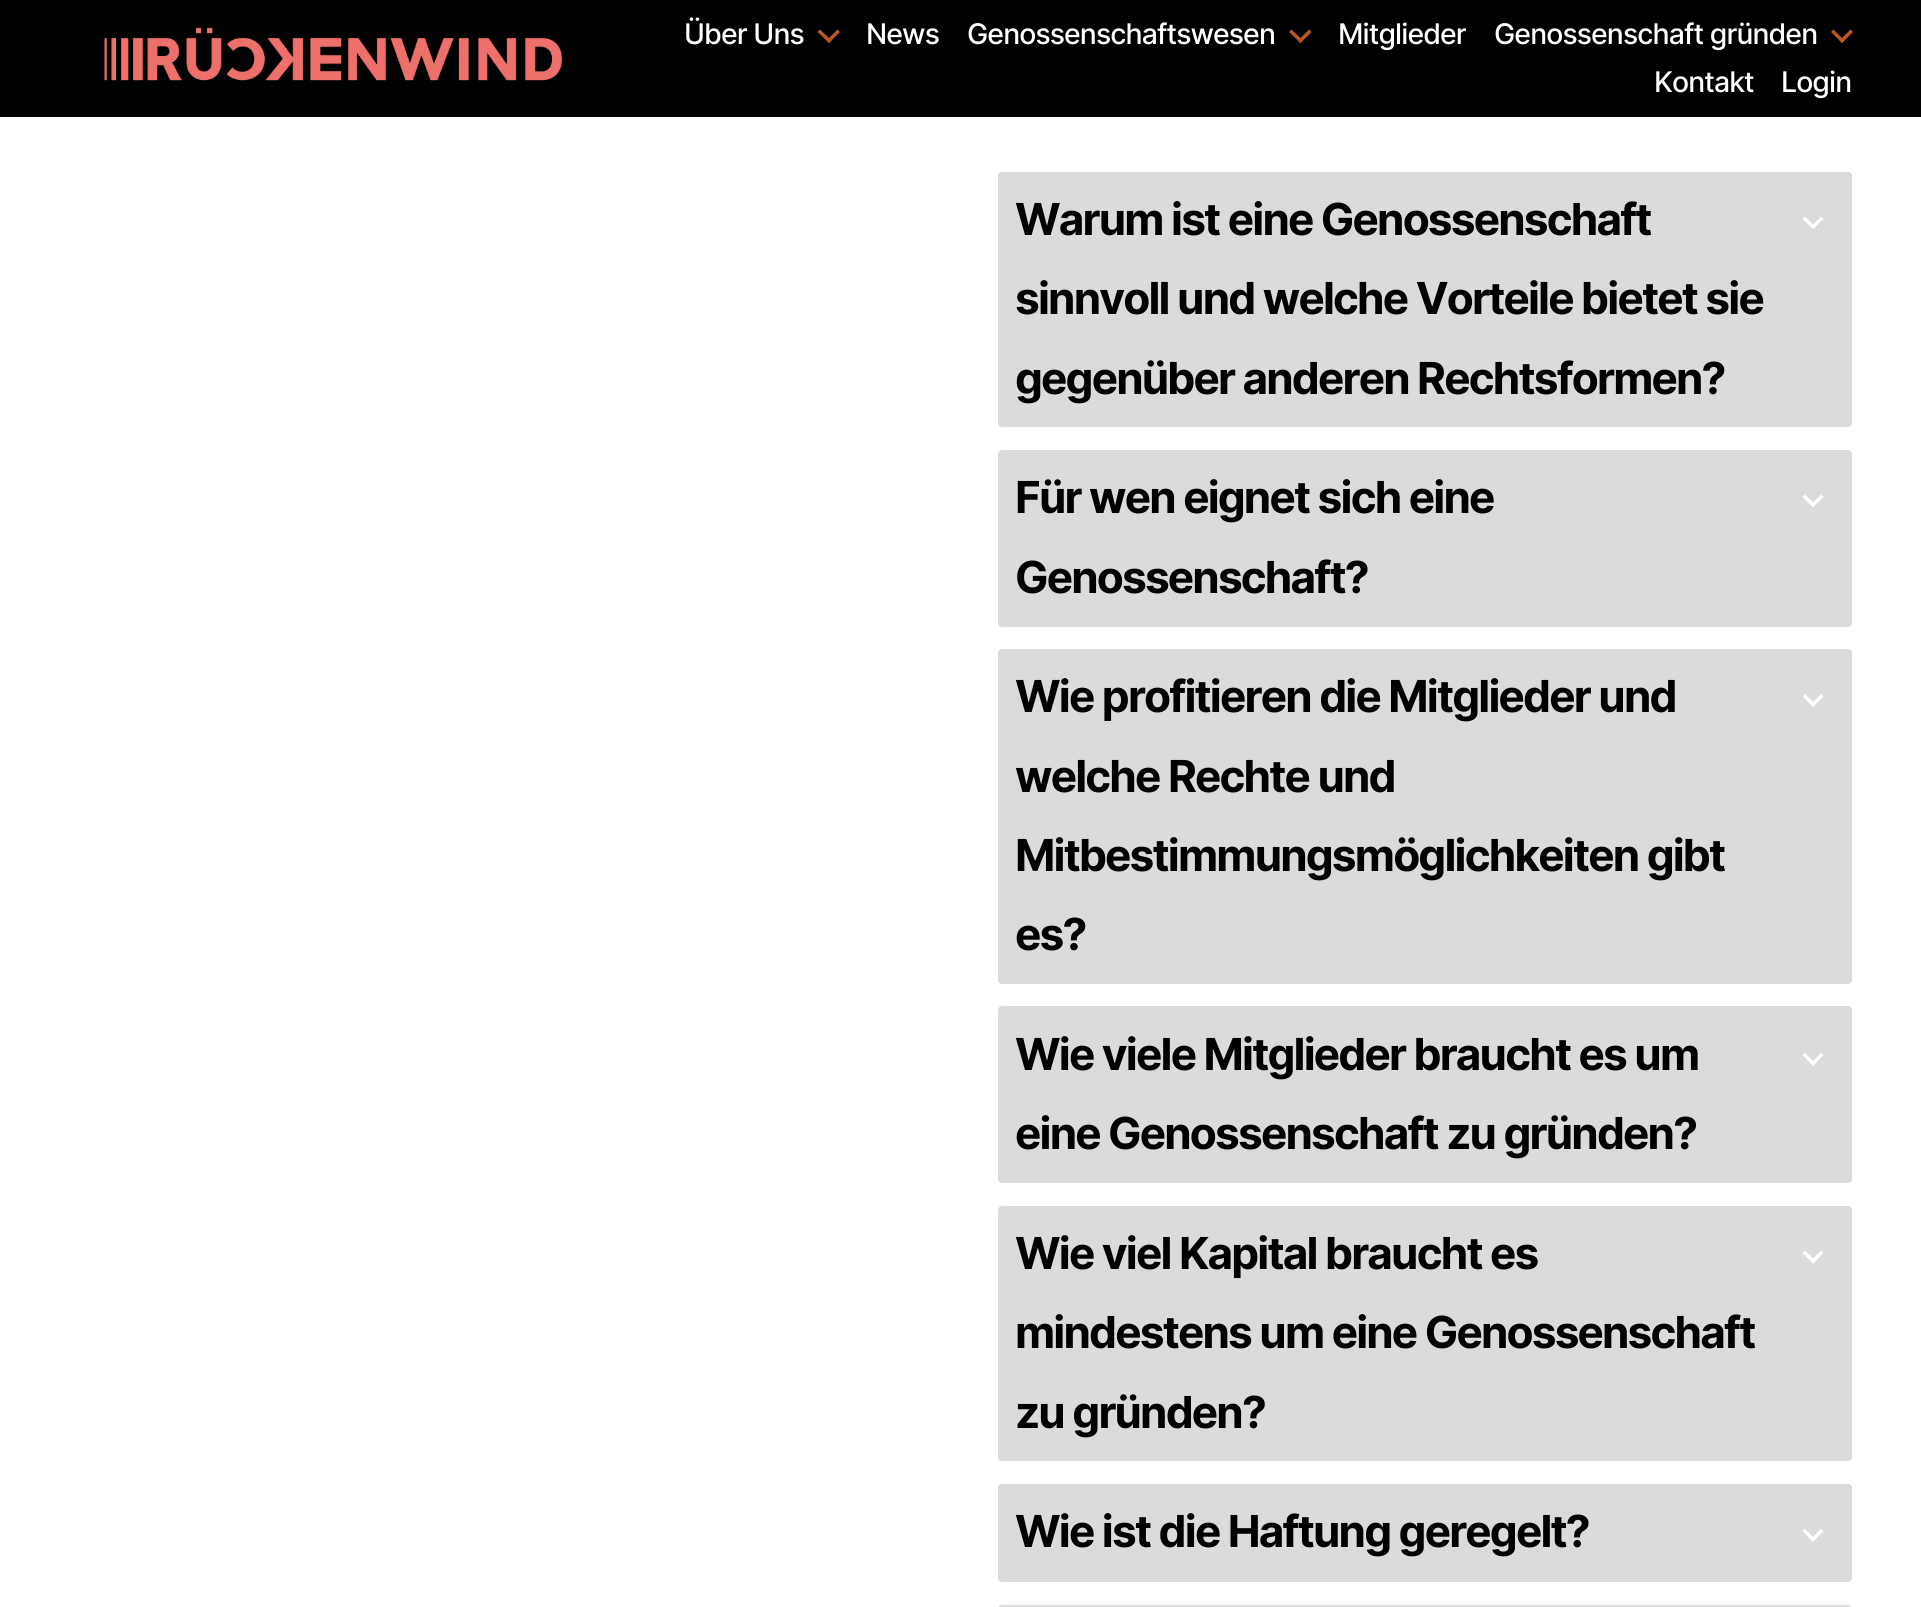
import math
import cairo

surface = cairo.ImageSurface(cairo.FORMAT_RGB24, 1921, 1607)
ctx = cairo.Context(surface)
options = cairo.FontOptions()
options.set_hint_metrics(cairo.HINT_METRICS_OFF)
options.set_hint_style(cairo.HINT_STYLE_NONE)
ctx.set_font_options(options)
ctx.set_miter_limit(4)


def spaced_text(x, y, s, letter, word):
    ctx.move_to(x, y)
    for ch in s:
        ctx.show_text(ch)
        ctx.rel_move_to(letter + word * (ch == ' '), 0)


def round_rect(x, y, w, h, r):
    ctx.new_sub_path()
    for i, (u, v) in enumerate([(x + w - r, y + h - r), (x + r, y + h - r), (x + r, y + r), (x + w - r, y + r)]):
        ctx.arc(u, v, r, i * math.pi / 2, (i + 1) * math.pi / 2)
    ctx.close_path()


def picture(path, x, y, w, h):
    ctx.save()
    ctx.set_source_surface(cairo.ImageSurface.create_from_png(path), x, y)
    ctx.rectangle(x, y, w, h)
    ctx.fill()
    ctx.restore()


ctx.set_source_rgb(1, 1, 1)
ctx.paint()
ctx.set_source_rgb(0, 0, 0)
ctx.rectangle(0, 0, 1921, 117)
ctx.fill()
picture("img1.png", 104, 27, 458, 54)
ctx.select_font_face("Inter Medium")
ctx.set_font_size(28.4)
ctx.set_source_rgb(1, 1, 1)
spaced_text(684, 44, "Über Uns", -0.9, 0)
ctx.set_source_rgb(0.733, 0.341, 0.145)
ctx.new_path()
ctx.move_to(817.5, 32)
ctx.line_to(820, 29.5)
ctx.line_to(831.5, 40.5)
ctx.line_to(829, 43)
ctx.close_path()
ctx.fill()
ctx.new_path()
ctx.move_to(826.5, 40.5)
ctx.line_to(837.5, 29.5)
ctx.line_to(840, 32)
ctx.line_to(829, 43)
ctx.close_path()
ctx.fill()
ctx.set_source_rgb(1, 1, 1)
spaced_text(866, 44, "News", -0.9, 0)
spaced_text(967, 44, "Genossenschaftswesen", -0.9, 0)
ctx.set_source_rgb(0.733, 0.341, 0.145)
ctx.new_path()
ctx.move_to(1289, 32)
ctx.line_to(1291.5, 29.5)
ctx.line_to(1303, 40.5)
ctx.line_to(1300.5, 43)
ctx.close_path()
ctx.fill()
ctx.new_path()
ctx.move_to(1298, 40.5)
ctx.line_to(1309, 29.5)
ctx.line_to(1311.5, 32)
ctx.line_to(1300.5, 43)
ctx.close_path()
ctx.fill()
ctx.set_source_rgb(1, 1, 1)
spaced_text(1338, 44, "Mitglieder", -0.9, 0)
spaced_text(1494, 44, "Genossenschaft gründen", -0.9, 0)
ctx.set_source_rgb(0.733, 0.341, 0.145)
ctx.new_path()
ctx.move_to(1831, 32)
ctx.line_to(1833.5, 29.5)
ctx.line_to(1844.5, 40.5)
ctx.line_to(1842, 43)
ctx.close_path()
ctx.fill()
ctx.new_path()
ctx.move_to(1839.5, 40.5)
ctx.line_to(1850.5, 29.5)
ctx.line_to(1853, 32)
ctx.line_to(1842, 43)
ctx.close_path()
ctx.fill()
ctx.set_source_rgb(1, 1, 1)
spaced_text(1654, 92, "Kontakt", -0.9, 0)
spaced_text(1781, 92, "Login", -0.9, 0)
ctx.set_source_rgb(0.859, 0.859, 0.859)
round_rect(998, 172, 854, 255, 4)
ctx.fill()
ctx.select_font_face("Inter", cairo.FONT_SLANT_NORMAL, cairo.FONT_WEIGHT_BOLD)
ctx.set_font_size(44.1)
ctx.set_source_rgb(0, 0, 0)
spaced_text(1015, 235, "Warum ist eine Genossenschaft", -1.85, 0)
spaced_text(1015, 314, "sinnvoll und welche Vorteile bietet sie", -1.85, 0)
spaced_text(1015, 394, "gegenüber anderen Rechtsformen?", -1.85, 0)
ctx.set_source_rgb(1, 1, 1)
ctx.new_path()
ctx.move_to(1821, 216.5)
ctx.line_to(1813, 224.5)
ctx.line_to(1805, 216.5)
ctx.line_to(1802.5, 219)
ctx.line_to(1813, 229)
ctx.line_to(1823.5, 219)
ctx.close_path()
ctx.fill()
ctx.set_source_rgb(0.859, 0.859, 0.859)
round_rect(998, 450, 854, 177, 4)
ctx.fill()
ctx.set_source_rgb(0, 0, 0)
spaced_text(1015, 513, "Für wen eignet sich eine", -1.85, 0)
spaced_text(1015, 593, "Genossenschaft?", -1.85, 0)
ctx.set_source_rgb(1, 1, 1)
ctx.new_path()
ctx.move_to(1821, 494.5)
ctx.line_to(1813, 502.5)
ctx.line_to(1805, 494.5)
ctx.line_to(1802.5, 497)
ctx.line_to(1813, 507.5)
ctx.line_to(1823.5, 497)
ctx.close_path()
ctx.fill()
ctx.set_source_rgb(0.859, 0.859, 0.859)
round_rect(998, 649, 854, 335, 4)
ctx.fill()
ctx.set_source_rgb(0, 0, 0)
spaced_text(1015, 712, "Wie profitieren die Mitglieder und", -1.85, 0)
spaced_text(1015, 792, "welche Rechte und", -1.85, 0)
spaced_text(1015, 871, "Mitbestimmungsmöglichkeiten gibt", -1.85, 0)
spaced_text(1015, 950, "es?", -1.85, 0)
ctx.set_source_rgb(1, 1, 1)
ctx.new_path()
ctx.move_to(1821, 694)
ctx.line_to(1813, 702)
ctx.line_to(1805, 694)
ctx.line_to(1802.5, 696.5)
ctx.line_to(1813, 707)
ctx.line_to(1823.5, 696.5)
ctx.close_path()
ctx.fill()
ctx.set_source_rgb(0.859, 0.859, 0.859)
round_rect(998, 1006, 854, 177, 4)
ctx.fill()
ctx.set_source_rgb(0, 0, 0)
spaced_text(1015, 1070, "Wie viele Mitglieder braucht es um", -1.85, 0)
spaced_text(1015, 1149, "eine Genossenschaft zu gründen?", -1.85, 0)
ctx.set_source_rgb(1, 1, 1)
ctx.new_path()
ctx.move_to(1821, 1053)
ctx.line_to(1813, 1061)
ctx.line_to(1805, 1053)
ctx.line_to(1802.5, 1055)
ctx.line_to(1813, 1066)
ctx.line_to(1823.5, 1055)
ctx.close_path()
ctx.fill()
ctx.set_source_rgb(0.859, 0.859, 0.859)
round_rect(998, 1206, 854, 255, 4)
ctx.fill()
ctx.set_source_rgb(0, 0, 0)
spaced_text(1015, 1269, "Wie viel Kapital braucht es", -1.85, 0)
spaced_text(1015, 1348, "mindestens um eine Genossenschaft", -1.85, 0)
spaced_text(1015, 1428, "zu gründen?", -1.85, 0)
ctx.set_source_rgb(1, 1, 1)
ctx.new_path()
ctx.move_to(1821, 1250.5)
ctx.line_to(1813, 1258.5)
ctx.line_to(1805, 1250.5)
ctx.line_to(1802.5, 1253)
ctx.line_to(1813, 1263.5)
ctx.line_to(1823.5, 1253)
ctx.close_path()
ctx.fill()
ctx.set_source_rgb(0.859, 0.859, 0.859)
round_rect(998, 1484, 854, 98, 4)
ctx.fill()
ctx.set_source_rgb(0, 0, 0)
spaced_text(1015, 1547, "Wie ist die Haftung geregelt?", -1.85, 0)
ctx.set_source_rgb(1, 1, 1)
ctx.new_path()
ctx.move_to(1821, 1529)
ctx.line_to(1813, 1537)
ctx.line_to(1805, 1529)
ctx.line_to(1802.5, 1531)
ctx.line_to(1813, 1542)
ctx.line_to(1823.5, 1531)
ctx.close_path()
ctx.fill()
ctx.set_source_rgb(0.859, 0.859, 0.859)
round_rect(998, 1605, 854, 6, 4)
ctx.fill()
surface.write_to_png("page.png")
